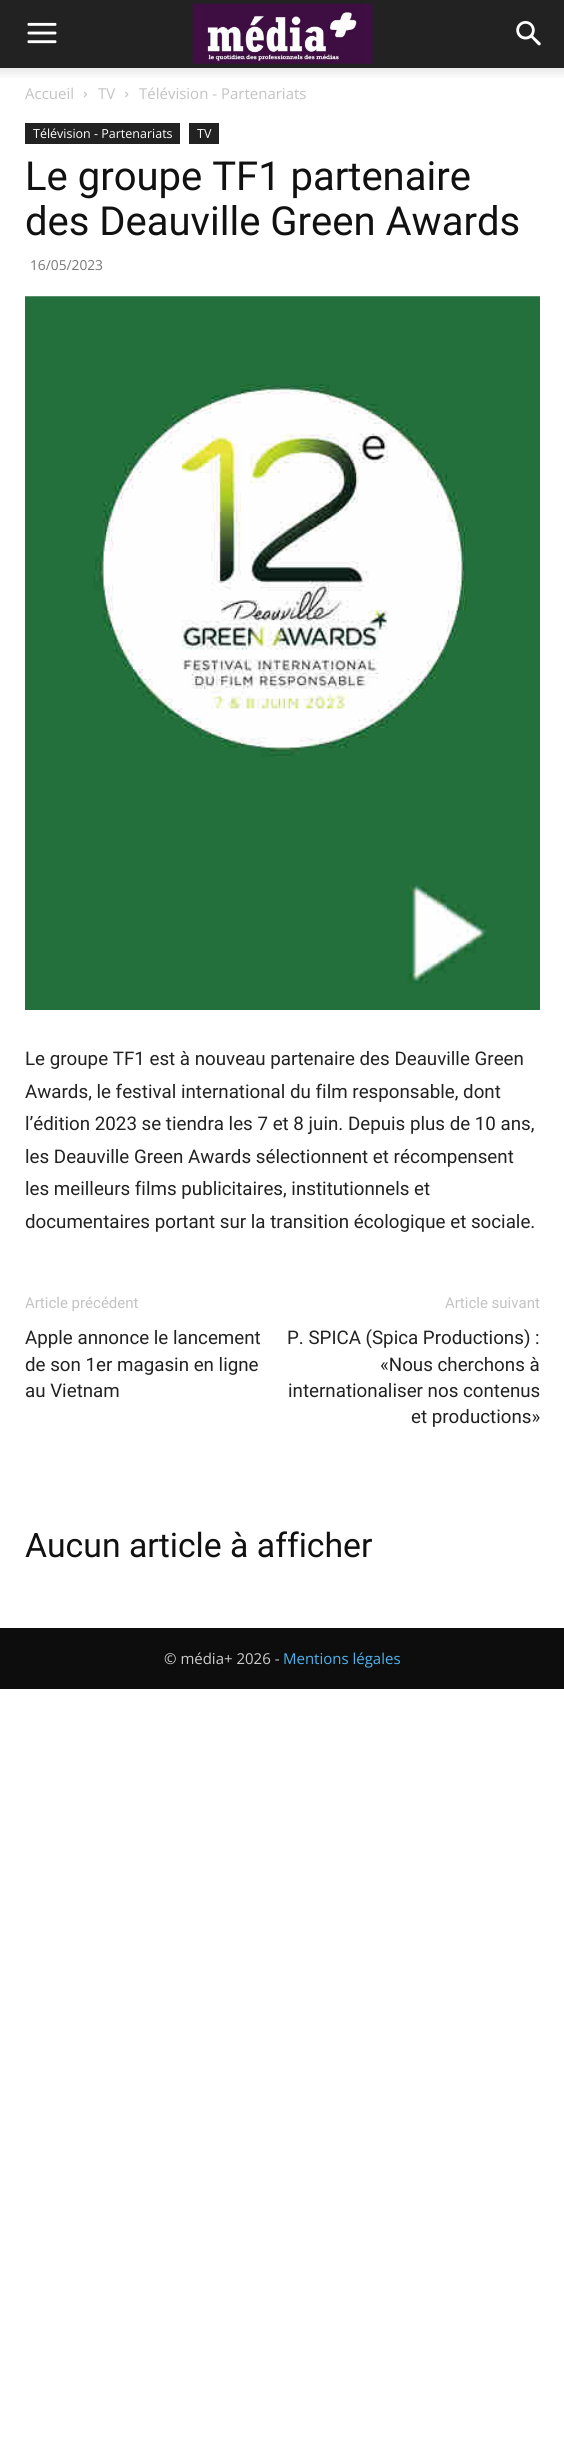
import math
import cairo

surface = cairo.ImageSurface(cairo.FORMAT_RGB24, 564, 2464)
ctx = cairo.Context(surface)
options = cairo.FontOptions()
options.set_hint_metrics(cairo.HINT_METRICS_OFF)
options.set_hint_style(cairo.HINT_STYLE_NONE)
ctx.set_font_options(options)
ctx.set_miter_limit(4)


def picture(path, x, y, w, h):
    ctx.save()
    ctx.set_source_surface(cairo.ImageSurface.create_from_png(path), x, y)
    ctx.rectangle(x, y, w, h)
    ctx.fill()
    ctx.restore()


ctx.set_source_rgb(1, 1, 1)
ctx.paint()
ctx.set_source_rgb(0.133, 0.133, 0.133)
ctx.rectangle(0, 0, 564, 68)
ctx.fill()
picture("img1.png", 27, 22, 30, 22)
picture("img2.png", 192, 3, 181, 61)
picture("img3.png", 516, 21, 25, 25)
picture("img4.png", 0, 68, 564, 10)
ctx.select_font_face("Open Sans")
ctx.set_font_size(15)
ctx.set_source_rgb(0.765, 0.765, 0.765)
ctx.move_to(25, 99)
ctx.show_text("Accueil")
picture("img5.png", 83, 91, 4, 7)
ctx.move_to(98, 99)
ctx.show_text("TV")
picture("img6.png", 125, 91, 4, 7)
ctx.move_to(139, 99)
ctx.show_text("Télévision - Partenariats")
ctx.set_source_rgb(0.133, 0.133, 0.133)
ctx.rectangle(25, 123, 155, 21)
ctx.fill()
ctx.set_font_size(12.5)
ctx.set_source_rgb(1, 1, 1)
ctx.move_to(33, 138)
ctx.show_text("Télévision - Partenariats")
ctx.set_source_rgb(0.133, 0.133, 0.133)
ctx.rectangle(189, 123, 30, 21)
ctx.fill()
ctx.set_source_rgb(1, 1, 1)
ctx.move_to(197, 138)
ctx.show_text("TV")
ctx.select_font_face("Roboto")
ctx.set_font_size(40)
ctx.set_source_rgb(0.067, 0.067, 0.067)
ctx.move_to(25, 190)
ctx.show_text("Le groupe TF1 partenaire")
ctx.move_to(25, 235)
ctx.show_text("des Deauville Green Awards")
ctx.select_font_face("Open Sans")
ctx.set_font_size(13.75)
ctx.set_source_rgb(0.463, 0.463, 0.463)
ctx.move_to(30, 270)
ctx.show_text("16/05/2023")
picture("img7.png", 25, 296, 515, 714)
ctx.select_font_face("Roboto")
ctx.set_font_size(18.75)
ctx.set_source_rgb(0.133, 0.133, 0.133)
ctx.move_to(25, 1065)
ctx.show_text("Le groupe TF1 est à nouveau partenaire des Deauville Green")
ctx.move_to(25, 1098)
ctx.show_text("Awards, le festival international du film responsable, dont")
ctx.move_to(25, 1130)
ctx.show_text("l’édition 2023 se tiendra les 7 et 8 juin. Depuis plus de 10 ans,")
ctx.move_to(25, 1163)
ctx.show_text("les Deauville Green Awards sélectionnent et récompensent")
ctx.move_to(25, 1195)
ctx.show_text("les meilleurs films publicitaires, institutionnels et")
ctx.move_to(25, 1228)
ctx.show_text("documentaires portant sur la transition écologique et sociale.")
ctx.set_font_size(15)
ctx.set_source_rgb(0.765, 0.765, 0.765)
ctx.move_to(25, 1308)
ctx.show_text("Article précédent")
ctx.set_font_size(18.75)
ctx.set_source_rgb(0.133, 0.133, 0.133)
ctx.move_to(25, 1344)
ctx.show_text("Apple annonce le lancement")
ctx.move_to(25, 1371)
ctx.show_text("de son 1er magasin en ligne")
ctx.move_to(25, 1397)
ctx.show_text("au Vietnam")
ctx.set_font_size(15)
ctx.set_source_rgb(0.765, 0.765, 0.765)
ctx.move_to(445, 1308)
ctx.show_text("Article suivant")
ctx.set_font_size(18.75)
ctx.set_source_rgb(0.133, 0.133, 0.133)
ctx.move_to(287, 1344)
ctx.show_text("P. SPICA (Spica Productions) :")
ctx.move_to(380, 1371)
ctx.show_text("«Nous cherchons à")
ctx.move_to(288, 1397)
ctx.show_text("internationaliser nos contenus")
ctx.move_to(411, 1423)
ctx.show_text("et productions»")
ctx.set_font_size(33.75)
ctx.set_source_rgb(0.067, 0.067, 0.067)
ctx.move_to(25, 1557)
ctx.show_text("Aucun article à afficher")
ctx.set_source_rgb(0.051, 0.051, 0.051)
ctx.rectangle(0, 1628, 564, 61)
ctx.fill()
ctx.select_font_face("Open Sans")
ctx.set_font_size(15)
ctx.set_source_rgb(0.8, 0.8, 0.8)
ctx.move_to(164, 1664)
ctx.show_text("© média+ 2026 -")
ctx.set_source_rgb(0.302, 0.698, 0.925)
ctx.move_to(283, 1664)
ctx.show_text("Mentions légales")
surface.write_to_png("page.png")
